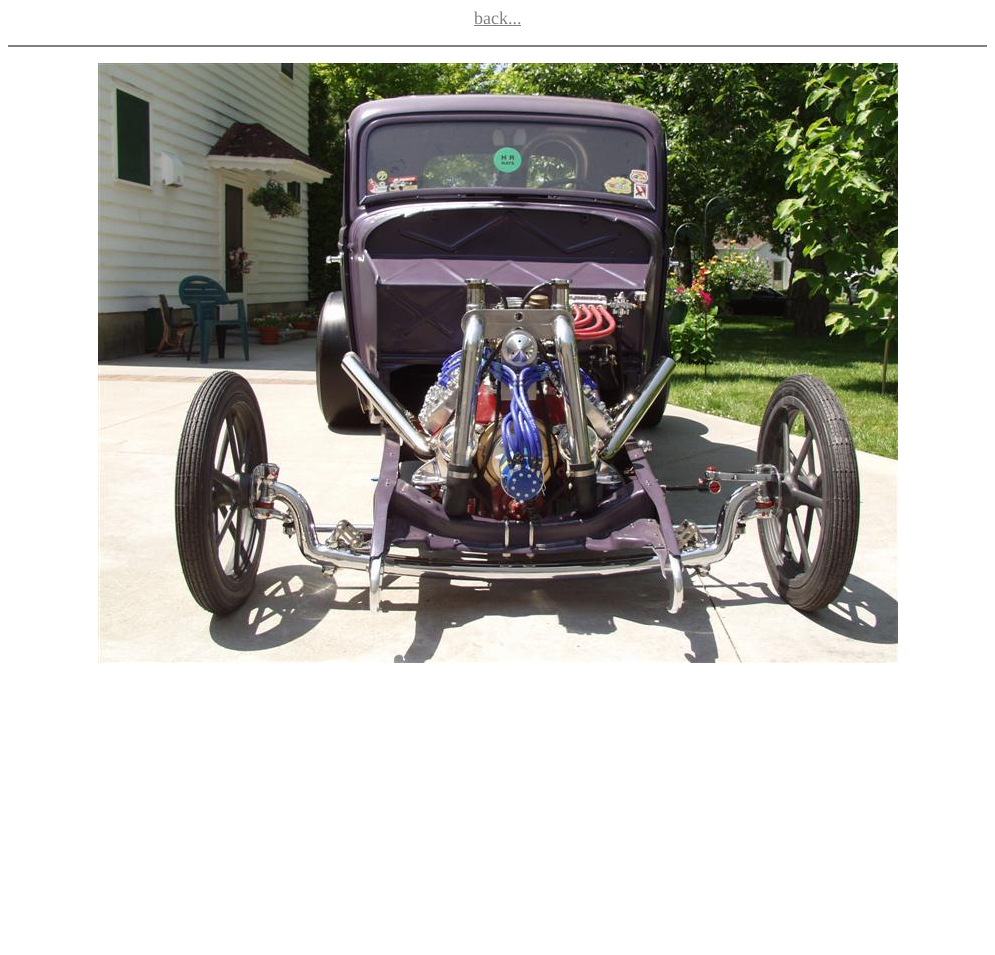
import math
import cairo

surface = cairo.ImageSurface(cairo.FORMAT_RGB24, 995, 955)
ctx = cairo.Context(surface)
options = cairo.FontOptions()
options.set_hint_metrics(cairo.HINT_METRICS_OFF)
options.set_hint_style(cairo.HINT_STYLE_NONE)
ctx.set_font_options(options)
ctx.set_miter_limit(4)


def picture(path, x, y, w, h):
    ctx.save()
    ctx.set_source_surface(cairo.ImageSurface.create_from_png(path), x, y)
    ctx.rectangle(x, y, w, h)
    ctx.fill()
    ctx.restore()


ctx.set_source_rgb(1, 1, 1)
ctx.paint()
ctx.select_font_face("Liberation Serif")
ctx.set_font_size(18)
ctx.set_source_rgb(0.502, 0.502, 0.502)
ctx.move_to(474, 24)
ctx.show_text("back...")
ctx.rectangle(474, 25, 47, 1)
ctx.fill()
ctx.rectangle(8, 45, 979, 2)
ctx.fill()
picture("img1.png", 98, 63, 800, 600)
surface.write_to_png("page.png")
